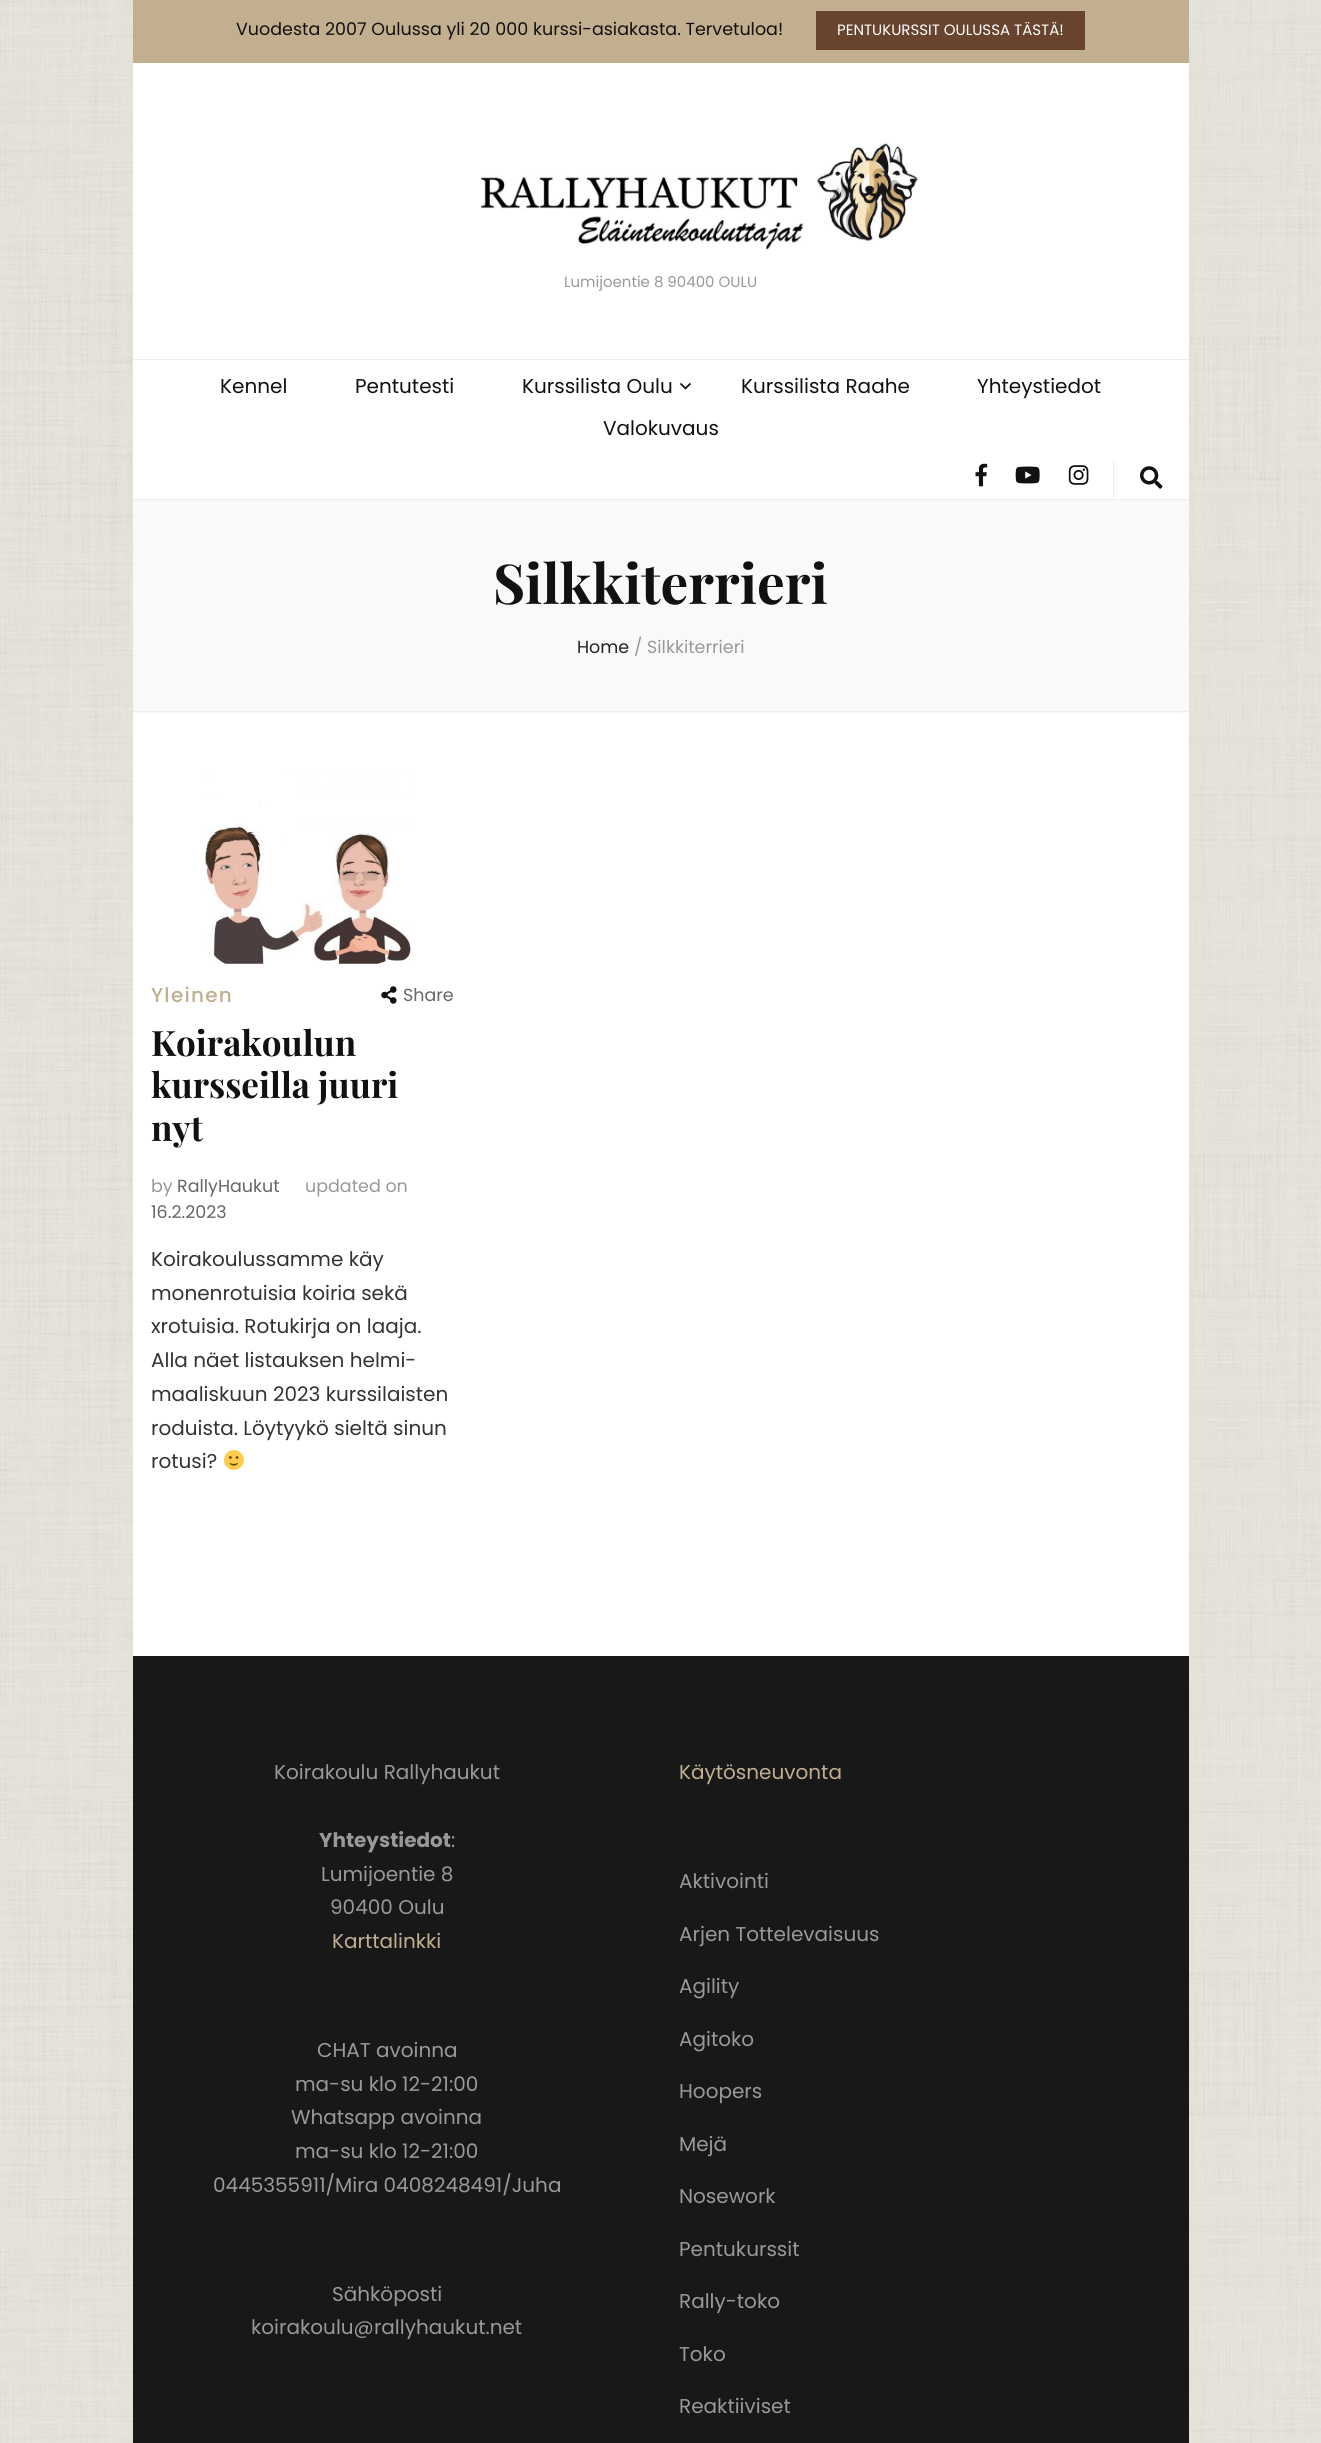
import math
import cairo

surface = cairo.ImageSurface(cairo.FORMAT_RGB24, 1321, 2443)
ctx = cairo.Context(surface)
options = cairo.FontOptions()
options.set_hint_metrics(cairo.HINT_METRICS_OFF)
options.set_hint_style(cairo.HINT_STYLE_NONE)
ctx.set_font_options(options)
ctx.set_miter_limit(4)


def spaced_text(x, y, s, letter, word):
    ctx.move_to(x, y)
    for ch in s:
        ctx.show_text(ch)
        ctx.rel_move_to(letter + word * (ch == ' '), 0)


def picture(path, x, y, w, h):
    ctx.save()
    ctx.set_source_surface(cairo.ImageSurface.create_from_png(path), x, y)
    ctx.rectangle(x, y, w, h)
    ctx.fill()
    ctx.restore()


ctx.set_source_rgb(1, 1, 1)
ctx.paint()
picture("img1.png", 0, 0, 1321, 2443)
ctx.set_source_rgb(1, 1, 1)
ctx.rectangle(133, 63, 1056, 1593)
ctx.fill()
ctx.set_source_rgb(0.757, 0.686, 0.561)
ctx.rectangle(133, 0, 1056, 63)
ctx.fill()
ctx.select_font_face("Poppins")
ctx.set_font_size(17.5)
ctx.set_source_rgb(0.067, 0.067, 0.067)
ctx.move_to(236, 35)
ctx.show_text("Vuodesta 2007 Oulussa yli 20 000 kurssi-asiakasta. Tervetuloa!")
ctx.set_source_rgb(0.408, 0.267, 0.184)
ctx.rectangle(816, 11, 269, 39)
ctx.fill()
ctx.set_font_size(15)
ctx.set_source_rgb(1, 1, 1)
ctx.move_to(837, 35)
ctx.show_text("PENTUKURSSIT OULUSSA TÄSTÄ!")
picture("img2.png", 480, 143, 438, 107)
ctx.set_source_rgb(0.6, 0.6, 0.6)
ctx.move_to(564, 287)
ctx.show_text("Lumijoentie 8 90400 OULU")
ctx.set_source_rgb(0.933, 0.933, 0.933)
ctx.rectangle(133, 359, 1056, 1)
ctx.fill()
ctx.rectangle(133, 499, 1056, 1)
ctx.fill()
ctx.set_font_size(20)
ctx.set_source_rgb(0.067, 0.067, 0.067)
ctx.move_to(220, 393)
ctx.show_text("Kennel")
ctx.move_to(355, 393)
ctx.show_text("Pentutesti")
ctx.move_to(522, 393)
ctx.show_text("Kurssilista Oulu")
picture("img3.png", 680, 383, 11, 7)
ctx.move_to(741, 393)
ctx.show_text("Kurssilista Raahe")
ctx.move_to(977, 393)
ctx.show_text("Yhteystiedot")
ctx.move_to(603, 435)
ctx.show_text("Valokuvaus")
picture("img4.png", 975, 463, 13, 24)
picture("img5.png", 1015, 466, 25, 18)
picture("img6.png", 1068, 465, 21, 20)
ctx.set_source_rgb(0.933, 0.933, 0.933)
ctx.rectangle(1113, 460, 1, 39)
ctx.fill()
picture("img7.png", 1140, 466, 23, 23)
ctx.set_source_rgb(0.976, 0.976, 0.976)
ctx.rectangle(133, 500, 1056, 213)
ctx.fill()
ctx.set_source_rgb(0.933, 0.933, 0.933)
ctx.rectangle(133, 711, 1056, 1)
ctx.fill()
ctx.select_font_face("Playfair Display", cairo.FONT_SLANT_NORMAL, cairo.FONT_WEIGHT_BOLD)
ctx.set_font_size(55)
ctx.set_source_rgb(0.067, 0.067, 0.067)
ctx.move_to(493, 604)
ctx.show_text("Silkkiterrieri")
ctx.select_font_face("Poppins")
ctx.set_font_size(17.5)
ctx.set_source_rgb(0.133, 0.133, 0.133)
ctx.move_to(577, 653)
ctx.show_text("Home")
ctx.set_source_rgb(0.6, 0.6, 0.6)
ctx.move_to(634, 653)
ctx.show_text("/ Silkkiterrieri")
picture("img8.png", 205, 772, 210, 192)
ctx.select_font_face("Poppins Medium")
ctx.set_font_size(20)
ctx.set_source_rgb(0.757, 0.686, 0.561)
spaced_text(151, 1002, "Yleinen", 1.25, 0)
picture("img9.png", 381, 986, 16, 18)
ctx.select_font_face("Poppins")
ctx.set_font_size(17.5)
ctx.set_source_rgb(0.4, 0.4, 0.4)
ctx.move_to(403, 1001)
ctx.show_text("Share")
ctx.select_font_face("Playfair Display", cairo.FONT_SLANT_NORMAL, cairo.FONT_WEIGHT_BOLD)
ctx.set_font_size(35)
ctx.set_source_rgb(0.067, 0.067, 0.067)
ctx.move_to(151, 1056)
ctx.show_text("Koirakoulun")
ctx.move_to(151, 1098)
ctx.show_text("kursseilla juuri")
ctx.move_to(151, 1141)
ctx.show_text("nyt")
ctx.select_font_face("Poppins")
ctx.set_font_size(17.5)
ctx.set_source_rgb(0.6, 0.6, 0.6)
ctx.move_to(151, 1192)
ctx.show_text("by")
ctx.set_source_rgb(0.4, 0.4, 0.4)
ctx.move_to(177, 1192)
ctx.show_text("RallyHaukut")
ctx.set_source_rgb(0.6, 0.6, 0.6)
ctx.move_to(305, 1192)
ctx.show_text("updated on")
ctx.set_source_rgb(0.4, 0.4, 0.4)
ctx.move_to(151, 1218)
ctx.show_text("16.2.2023")
ctx.set_font_size(20)
ctx.set_source_rgb(0.2, 0.2, 0.2)
ctx.move_to(151, 1266)
ctx.show_text("Koirakoulussamme käy")
ctx.move_to(151, 1300)
ctx.show_text("monenrotuisia koiria sekä")
ctx.move_to(151, 1333)
ctx.show_text("xrotuisia. Rotukirja on laaja.")
ctx.move_to(151, 1367)
ctx.show_text("Alla näet listauksen helmi-")
ctx.move_to(151, 1401)
ctx.show_text("maaliskuun 2023 kurssilaisten")
ctx.move_to(151, 1435)
ctx.show_text("roduista. Löytyykö sieltä sinun")
ctx.move_to(151, 1468)
ctx.show_text("rotusi?")
picture("img10.png", 224, 1450, 20, 20)
ctx.set_source_rgb(0.094, 0.094, 0.094)
ctx.rectangle(133, 1656, 1056, 787)
ctx.fill()
ctx.set_source_rgb(0.6, 0.6, 0.6)
ctx.move_to(274, 1779)
ctx.show_text("Koirakoulu Rallyhaukut")
ctx.select_font_face("Poppins", cairo.FONT_SLANT_NORMAL, cairo.FONT_WEIGHT_BOLD)
ctx.move_to(319, 1847)
ctx.show_text("Yhteystiedot")
ctx.select_font_face("Poppins")
ctx.move_to(451, 1847)
ctx.show_text(":")
ctx.move_to(321, 1881)
ctx.show_text("Lumijoentie 8")
ctx.move_to(330, 1914)
ctx.show_text("90400 Oulu")
ctx.set_source_rgb(0.757, 0.686, 0.561)
ctx.move_to(332, 1948)
ctx.show_text("Karttalinkki")
ctx.set_source_rgb(0.6, 0.6, 0.6)
ctx.move_to(317, 2057)
ctx.show_text("CHAT avoinna")
ctx.move_to(295, 2091)
ctx.show_text("ma-su klo 12-21:00")
ctx.move_to(291, 2124)
ctx.show_text("Whatsapp avoinna")
ctx.move_to(295, 2158)
ctx.show_text("ma-su klo 12-21:00")
ctx.move_to(213, 2192)
ctx.show_text("0445355911/Mira 0408248491/Juha")
ctx.move_to(332, 2301)
ctx.show_text("Sähköposti")
ctx.move_to(251, 2334)
ctx.show_text("koirakoulu@rallyhaukut.net")
ctx.set_source_rgb(0.757, 0.686, 0.561)
ctx.move_to(679, 1779)
ctx.show_text("Käytösneuvonta")
ctx.set_source_rgb(0.6, 0.6, 0.6)
ctx.move_to(679, 1888)
ctx.show_text("Aktivointi")
ctx.move_to(679, 1941)
ctx.show_text("Arjen Tottelevaisuus")
ctx.move_to(679, 1993)
ctx.show_text("Agility")
ctx.move_to(679, 2046)
ctx.show_text("Agitoko")
ctx.move_to(679, 2098)
ctx.show_text("Hoopers")
ctx.move_to(679, 2151)
ctx.show_text("Mejä")
ctx.move_to(679, 2203)
ctx.show_text("Nosework")
ctx.move_to(679, 2256)
ctx.show_text("Pentukurssit")
ctx.move_to(679, 2308)
ctx.show_text("Rally-toko")
ctx.move_to(679, 2361)
ctx.show_text("Toko")
ctx.move_to(679, 2413)
ctx.show_text("Reaktiiviset")
surface.write_to_png("page.png")
